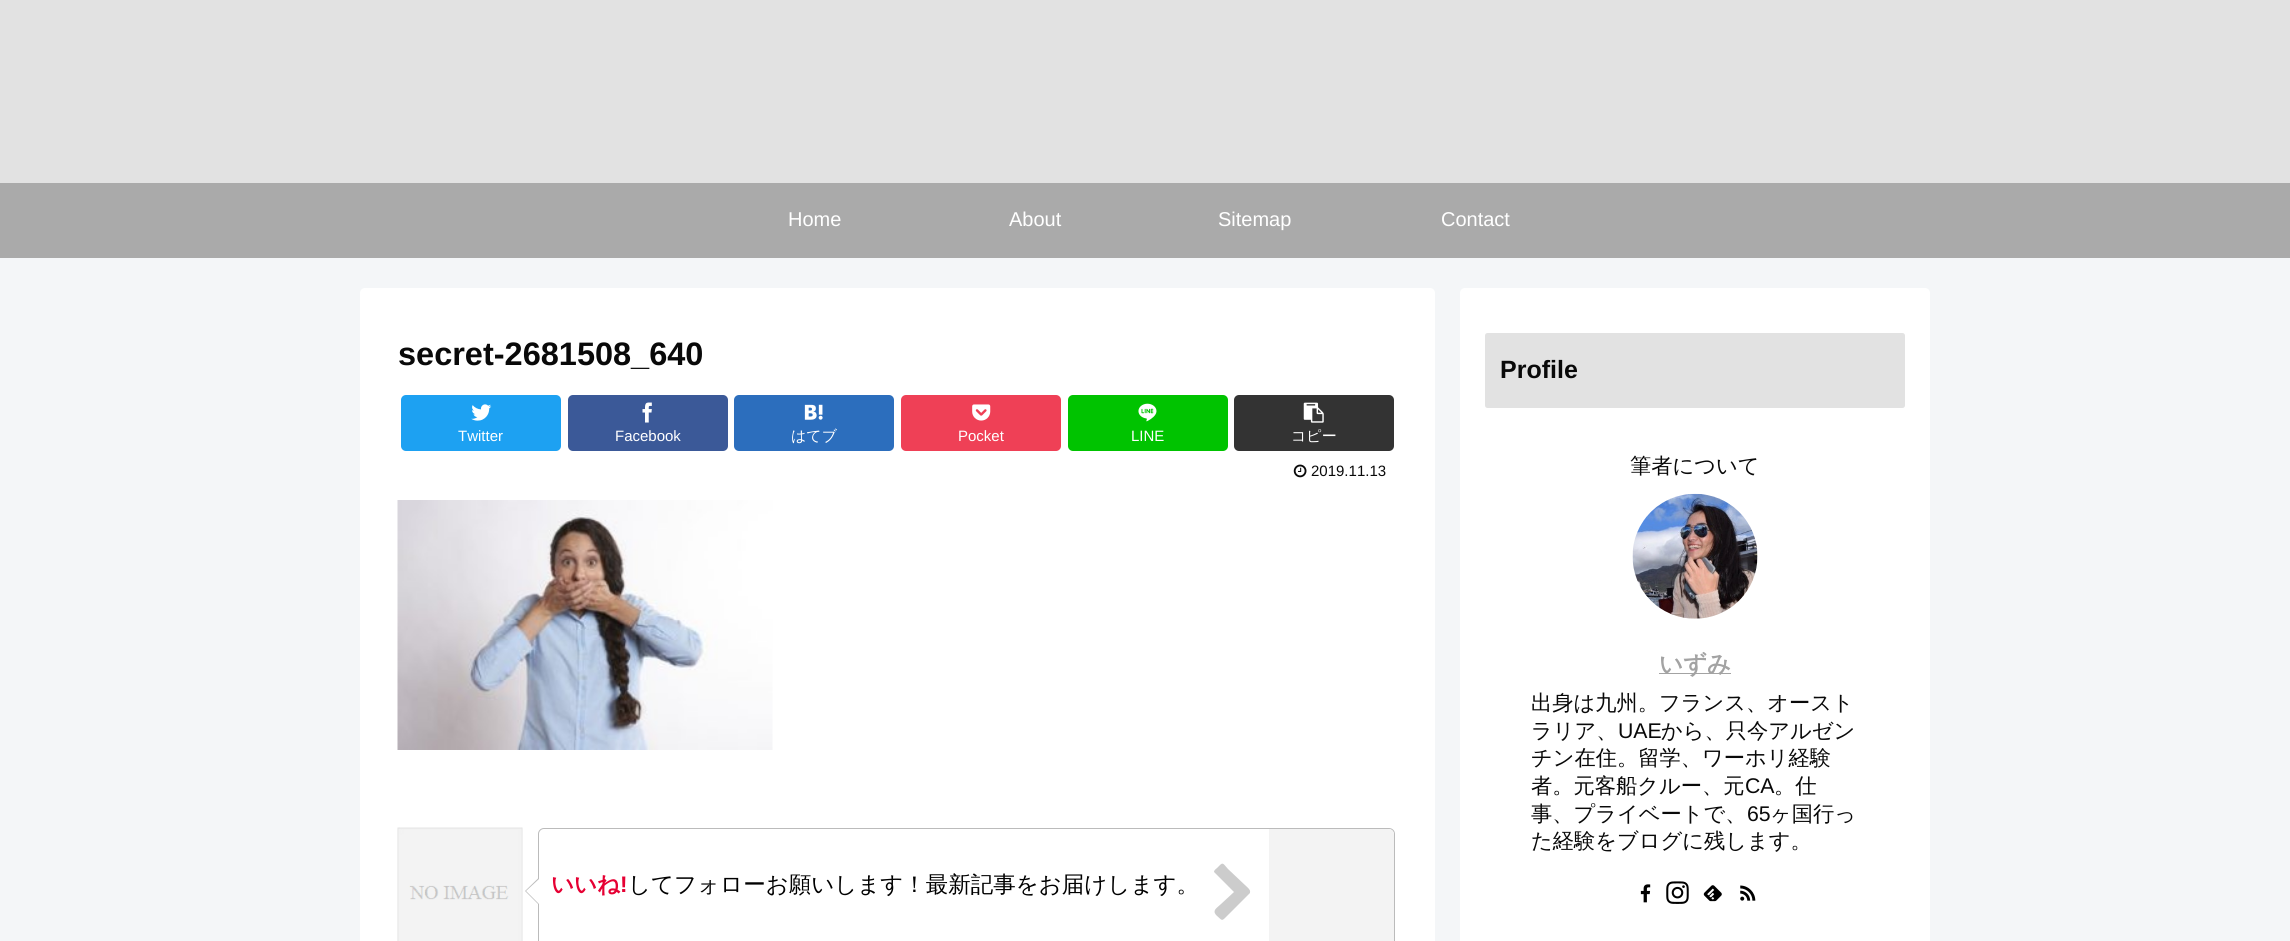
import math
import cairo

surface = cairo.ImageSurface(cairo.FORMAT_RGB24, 2290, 941)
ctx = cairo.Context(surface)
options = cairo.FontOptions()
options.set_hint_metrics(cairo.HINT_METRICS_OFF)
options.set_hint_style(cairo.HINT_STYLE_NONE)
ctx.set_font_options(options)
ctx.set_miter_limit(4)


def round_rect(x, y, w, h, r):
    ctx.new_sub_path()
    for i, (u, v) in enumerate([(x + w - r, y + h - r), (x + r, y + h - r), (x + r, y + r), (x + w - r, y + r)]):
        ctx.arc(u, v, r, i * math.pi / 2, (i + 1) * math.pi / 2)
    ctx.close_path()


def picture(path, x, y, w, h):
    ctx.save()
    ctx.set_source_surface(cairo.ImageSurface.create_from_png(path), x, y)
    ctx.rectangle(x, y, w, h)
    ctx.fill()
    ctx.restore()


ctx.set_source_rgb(0.957, 0.961, 0.969)
ctx.paint()
ctx.set_source_rgb(0.886, 0.886, 0.886)
ctx.rectangle(0, 0, 2290, 183)
ctx.fill()
ctx.set_source_rgb(0.667, 0.667, 0.667)
ctx.rectangle(0, 183, 2290, 75)
ctx.fill()
ctx.select_font_face("Liberation Sans")
ctx.set_font_size(20)
ctx.set_source_rgb(1, 1, 1)
ctx.move_to(788, 226)
ctx.show_text("Home")
ctx.move_to(1009, 226)
ctx.show_text("About")
ctx.move_to(1218, 226)
ctx.show_text("Sitemap")
ctx.move_to(1441, 226)
ctx.show_text("Contact")
round_rect(360, 288, 1075, 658, 5)
ctx.fill()
ctx.select_font_face("Liberation Sans", cairo.FONT_SLANT_NORMAL, cairo.FONT_WEIGHT_BOLD)
ctx.set_font_size(32.5)
ctx.set_source_rgb(0.039, 0.039, 0.039)
ctx.move_to(398, 365)
ctx.show_text("secret-2681508_640")
ctx.set_source_rgb(0.114, 0.631, 0.949)
round_rect(401, 395, 160, 56, 5)
ctx.fill()
picture("img1.png", 471, 404, 21, 17)
ctx.select_font_face("Liberation Sans")
ctx.set_font_size(15)
ctx.set_source_rgb(1, 1, 1)
ctx.move_to(458, 441)
ctx.show_text("Twitter")
ctx.set_source_rgb(0.231, 0.349, 0.596)
round_rect(568, 395, 160, 56, 5)
ctx.fill()
picture("img2.png", 642, 402, 10, 21)
ctx.set_source_rgb(1, 1, 1)
ctx.move_to(615, 441)
ctx.show_text("Facebook")
ctx.set_source_rgb(0.173, 0.431, 0.741)
round_rect(734, 395, 160, 56, 5)
ctx.fill()
picture("img3.png", 804, 404, 19, 16)
ctx.select_font_face("WenQuanYi Zen Hei Medium")
ctx.set_source_rgb(1, 1, 1)
ctx.move_to(791, 441)
ctx.show_text("はてブ")
ctx.set_source_rgb(0.937, 0.251, 0.337)
round_rect(901, 395, 160, 56, 5)
ctx.fill()
picture("img4.png", 972, 404, 19, 17)
ctx.select_font_face("Liberation Sans")
ctx.set_source_rgb(1, 1, 1)
ctx.move_to(958, 441)
ctx.show_text("Pocket")
ctx.set_source_rgb(0, 0.765, 0)
round_rect(1068, 395, 160, 56, 5)
ctx.fill()
picture("img5.png", 1138, 403, 19, 19)
ctx.set_source_rgb(1, 1, 1)
ctx.move_to(1131, 441)
ctx.show_text("LINE")
ctx.set_source_rgb(0.2, 0.2, 0.2)
round_rect(1234, 395, 160, 56, 5)
ctx.fill()
picture("img6.png", 1303, 402, 21, 21)
ctx.select_font_face("WenQuanYi Zen Hei Medium")
ctx.set_source_rgb(1, 1, 1)
ctx.move_to(1291, 441)
ctx.show_text("コピー")
picture("img7.png", 1293, 464, 14, 14)
ctx.select_font_face("Liberation Sans")
ctx.set_source_rgb(0.039, 0.039, 0.039)
ctx.move_to(1311, 476)
ctx.show_text("2019.11.13")
picture("img8.png", 397, 500, 376, 250)
picture("img9.png", 397, 827, 126, 114)
round_rect(538.5, 828.5, 856, 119, 5.5)
ctx.set_source_rgb(0.733, 0.733, 0.733)
ctx.set_line_width(1)
ctx.stroke()
ctx.new_path()
ctx.move_to(539, 877.5)
ctx.line_to(539, 905)
ctx.line_to(525, 891)
ctx.close_path()
ctx.fill()
ctx.select_font_face("WenQuanYi Zen Hei", cairo.FONT_SLANT_NORMAL, cairo.FONT_WEIGHT_BOLD)
ctx.set_font_size(22.5)
ctx.set_source_rgb(0.902, 0, 0.2)
ctx.move_to(551, 892)
ctx.show_text("いいね")
ctx.select_font_face("Liberation Sans", cairo.FONT_SLANT_NORMAL, cairo.FONT_WEIGHT_BOLD)
ctx.move_to(620, 892)
ctx.show_text("!")
ctx.select_font_face("WenQuanYi Zen Hei Medium")
ctx.set_source_rgb(0, 0, 0)
ctx.move_to(628, 892)
ctx.show_text("してフォローお願いします！最新記事をお届けします。")
ctx.set_source_rgb(0.8, 0.8, 0.8)
ctx.new_path()
ctx.move_to(1250, 893)
ctx.line_to(1228, 915)
ctx.curve_to(1221, 922, 1223, 921, 1216, 915)
ctx.curve_to(1212, 910, 1217, 908, 1221, 904)
ctx.line_to(1234, 892)
ctx.line_to(1214, 872)
ctx.curve_to(1214, 870, 1216, 869, 1217, 868)
ctx.curve_to(1223, 862, 1222, 862, 1228, 869)
ctx.line_to(1246, 886)
ctx.curve_to(1246, 886, 1251, 890, 1250, 892)
ctx.close_path()
ctx.fill()
ctx.set_source_rgb(0.953, 0.953, 0.953)
ctx.new_path()
ctx.move_to(1269, 829)
ctx.line_to(1388, 829)
ctx.curve_to(1391.5, 829, 1394, 831.5, 1394, 835)
ctx.line_to(1394, 941)
ctx.curve_to(1394, 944.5, 1391.5, 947, 1388, 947)
ctx.line_to(1269, 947)
ctx.close_path()
ctx.fill()
ctx.set_source_rgb(1, 1, 1)
ctx.new_path()
ctx.move_to(539, 879)
ctx.line_to(539, 904)
ctx.line_to(526, 891)
ctx.close_path()
ctx.fill()
round_rect(1460, 288, 470, 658, 5)
ctx.fill()
ctx.set_source_rgb(0.886, 0.886, 0.886)
round_rect(1485, 333, 420, 75, 2.5)
ctx.fill()
ctx.select_font_face("Liberation Sans", cairo.FONT_SLANT_NORMAL, cairo.FONT_WEIGHT_BOLD)
ctx.set_font_size(25)
ctx.set_source_rgb(0.039, 0.039, 0.039)
ctx.move_to(1500, 378)
ctx.show_text("Profile")
ctx.select_font_face("WenQuanYi Zen Hei Medium")
ctx.set_font_size(21.25)
ctx.move_to(1630, 473)
ctx.show_text("筆者について")
picture("img10.png", 1632, 493, 126, 126)
ctx.set_source_rgb(0.639, 0.639, 0.639)
ctx.rectangle(1659, 673, 72, 1)
ctx.fill()
ctx.select_font_face("WenQuanYi Zen Hei", cairo.FONT_SLANT_NORMAL, cairo.FONT_WEIGHT_BOLD)
ctx.set_font_size(23.5)
ctx.move_to(1659, 672)
ctx.show_text("いずみ")
ctx.select_font_face("WenQuanYi Zen Hei Medium")
ctx.set_font_size(21.25)
ctx.set_source_rgb(0.039, 0.039, 0.039)
ctx.move_to(1531, 710)
ctx.show_text("出身は九州。フランス、オースト")
ctx.move_to(1531, 738)
ctx.show_text("ラリア、")
ctx.select_font_face("Liberation Sans")
ctx.move_to(1618, 738)
ctx.show_text("UAE")
ctx.select_font_face("WenQuanYi Zen Hei Medium")
ctx.move_to(1661, 738)
ctx.show_text("から、只今アルゼン")
ctx.move_to(1531, 765)
ctx.show_text("チン在住。留学、ワーホリ経験")
ctx.move_to(1531, 793)
ctx.show_text("者。元客船クルー、元")
ctx.select_font_face("Liberation Sans")
ctx.move_to(1745, 793)
ctx.show_text("CA")
ctx.select_font_face("WenQuanYi Zen Hei Medium")
ctx.move_to(1774, 793)
ctx.show_text("。仕")
ctx.move_to(1531, 821)
ctx.show_text("事、プライベートで、")
ctx.select_font_face("Liberation Sans")
ctx.move_to(1747, 821)
ctx.show_text("65")
ctx.select_font_face("WenQuanYi Zen Hei Medium")
ctx.move_to(1770, 821)
ctx.show_text("ヶ国行っ")
ctx.move_to(1531, 848)
ctx.show_text("た経験をブログに残します。")
picture("img11.png", 1640, 884, 11, 19)
picture("img12.png", 1666, 881, 23, 23)
picture("img13.png", 1703, 885, 19, 17)
picture("img14.png", 1740, 885, 16, 16)
surface.write_to_png("page.png")
